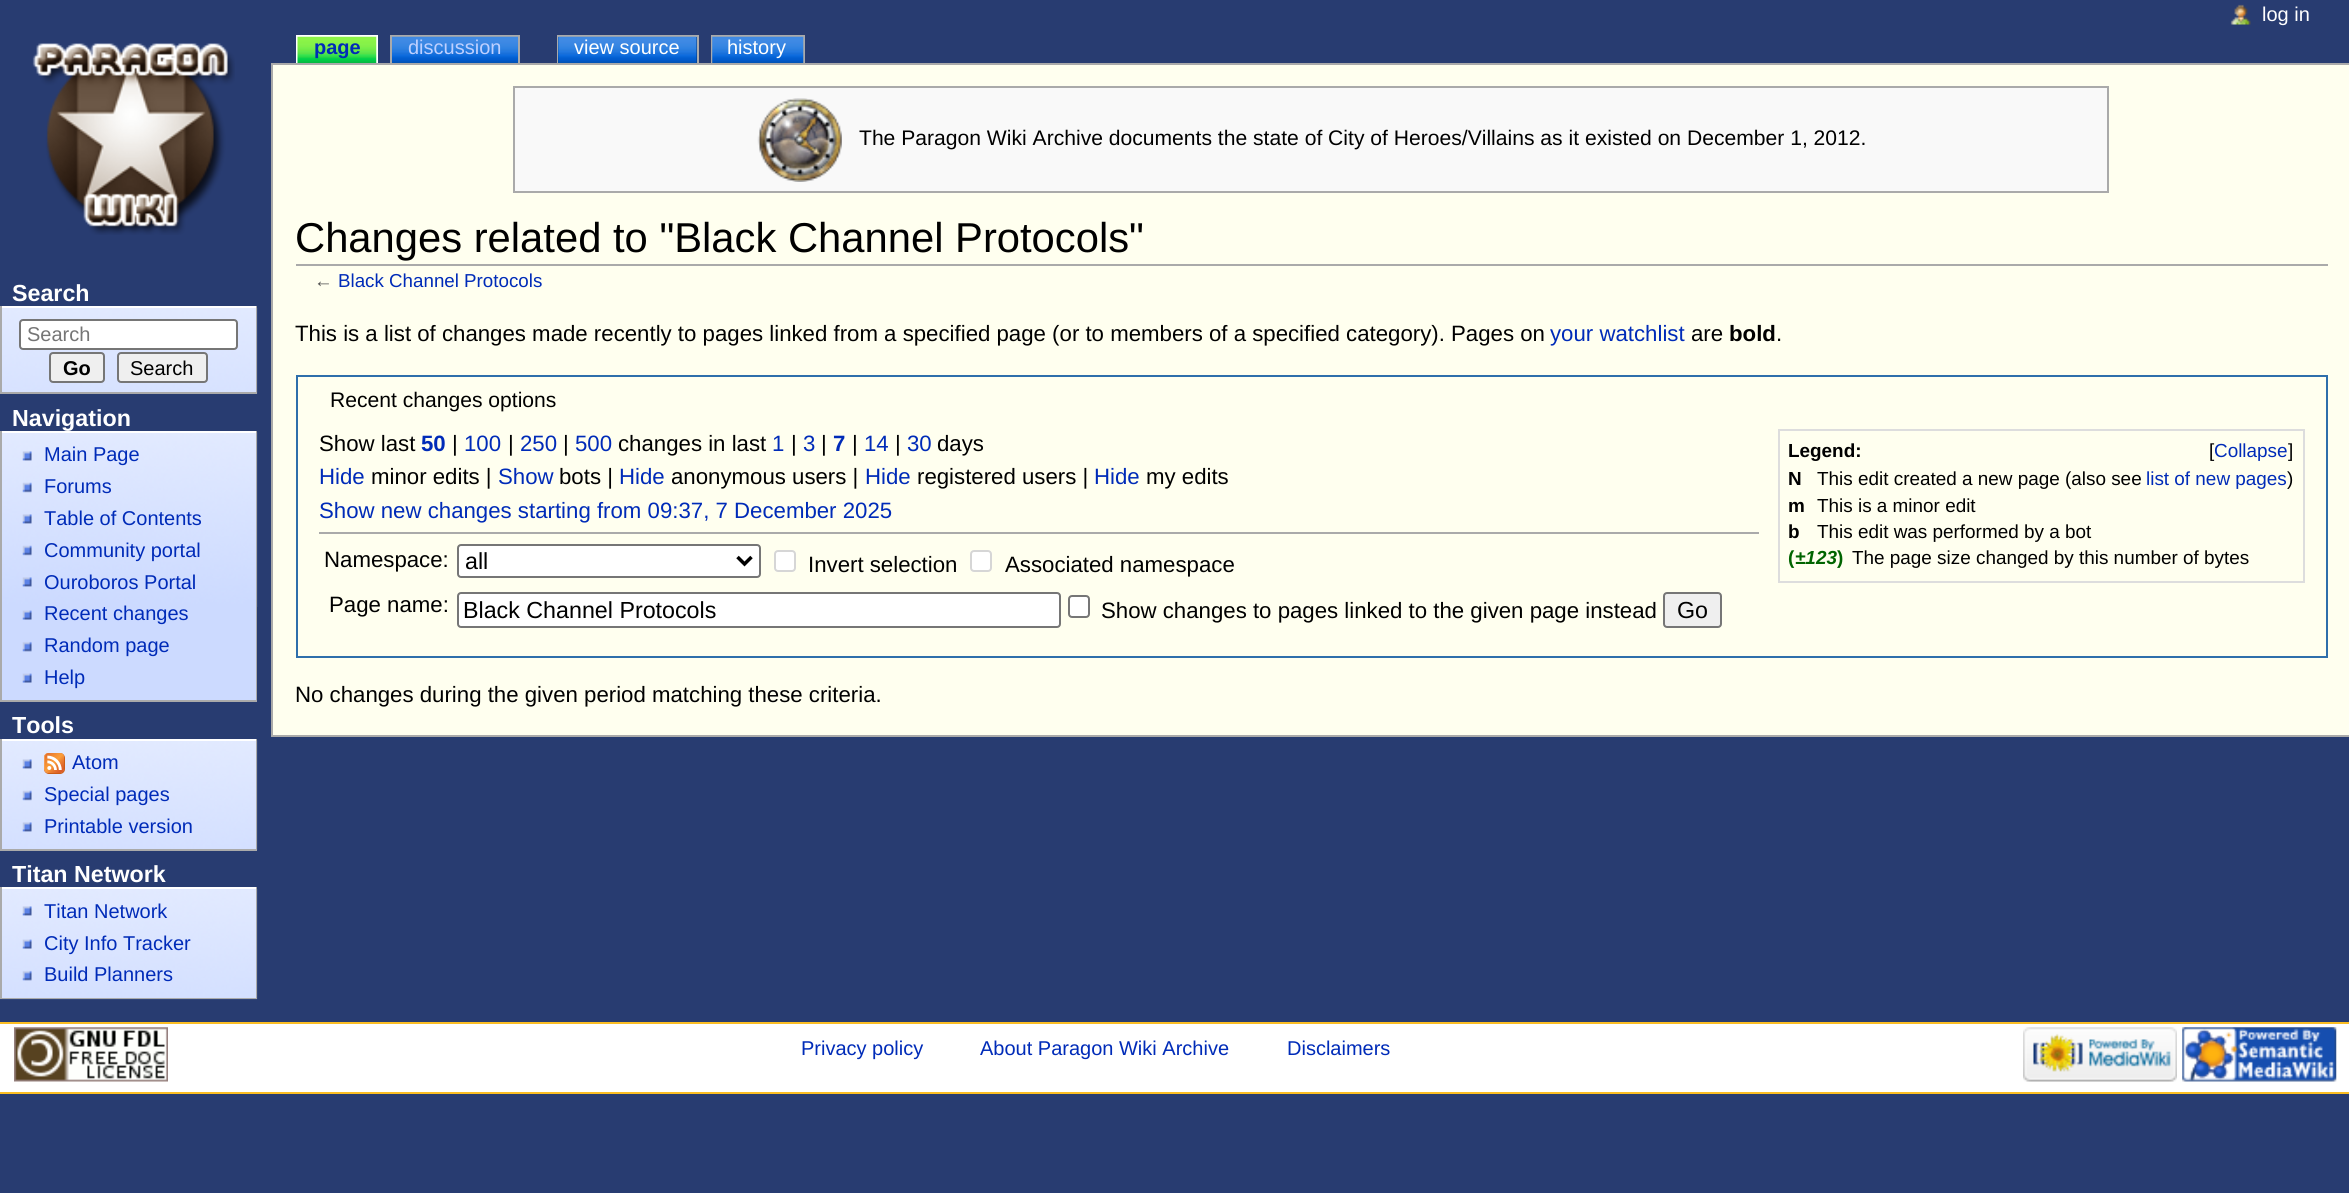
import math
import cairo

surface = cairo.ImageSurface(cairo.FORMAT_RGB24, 2349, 1193)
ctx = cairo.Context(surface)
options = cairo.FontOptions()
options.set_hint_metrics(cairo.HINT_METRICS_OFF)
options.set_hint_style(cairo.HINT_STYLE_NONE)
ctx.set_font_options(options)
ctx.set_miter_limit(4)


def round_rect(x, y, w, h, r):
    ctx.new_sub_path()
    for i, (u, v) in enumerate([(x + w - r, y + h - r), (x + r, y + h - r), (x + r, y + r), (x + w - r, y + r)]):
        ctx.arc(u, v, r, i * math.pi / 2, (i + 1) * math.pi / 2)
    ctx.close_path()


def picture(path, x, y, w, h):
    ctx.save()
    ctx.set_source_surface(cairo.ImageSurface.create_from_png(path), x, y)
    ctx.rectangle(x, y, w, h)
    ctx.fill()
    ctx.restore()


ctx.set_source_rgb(0.157, 0.235, 0.443)
ctx.paint()
picture("img1.png", 2230, 4, 21, 21)
ctx.select_font_face("Liberation Sans")
ctx.set_font_size(20)
ctx.set_source_rgb(1, 1, 1)
ctx.move_to(2262, 21)
ctx.show_text("log in")
picture("img2.png", 32, 43, 203, 192)
ctx.rectangle(296, 35, 82, 28)
ctx.fill()
picture("img3.png", 297, 36, 80, 27)
ctx.set_source_rgb(0.667, 0.667, 0.667)
ctx.rectangle(390, 35, 130, 2)
ctx.fill()
picture("img4.png", 392, 36, 126, 27)
ctx.rectangle(557, 35, 141, 2)
ctx.fill()
ctx.rectangle(557, 35, 2, 28)
ctx.fill()
ctx.set_source_rgb(0.004, 0.22, 0.494)
ctx.rectangle(558, 37, 139, 26)
ctx.fill()
picture("img5.png", 558, 36, 139, 27)
ctx.set_source_rgb(0.667, 0.667, 0.667)
ctx.rectangle(711, 35, 94, 2)
ctx.fill()
ctx.rectangle(803, 35, 2, 28)
ctx.fill()
ctx.rectangle(711, 35, 2, 28)
ctx.fill()
picture("img6.png", 712, 36, 92, 27)
ctx.select_font_face("Liberation Sans", cairo.FONT_SLANT_NORMAL, cairo.FONT_WEIGHT_BOLD)
ctx.set_source_rgb(0, 0.169, 0.722)
ctx.move_to(314, 54)
ctx.show_text("page")
ctx.select_font_face("Liberation Sans")
ctx.set_source_rgb(0.745, 0.816, 1)
ctx.move_to(408, 54)
ctx.show_text("discussion")
ctx.set_source_rgb(0.667, 0.667, 0.667)
ctx.rectangle(518, 35, 2, 28)
ctx.fill()
ctx.rectangle(390, 35, 2, 28)
ctx.fill()
ctx.set_source_rgb(1, 1, 1)
ctx.move_to(574, 54)
ctx.show_text("view source")
ctx.set_source_rgb(0.667, 0.667, 0.667)
ctx.rectangle(697, 35, 2, 28)
ctx.fill()
ctx.set_source_rgb(1, 1, 1)
ctx.move_to(727, 54)
ctx.show_text("history")
ctx.select_font_face("Liberation Sans", cairo.FONT_SLANT_NORMAL, cairo.FONT_WEIGHT_BOLD)
ctx.set_font_size(23.25)
ctx.move_to(12, 301)
ctx.show_text("Search")
picture("img7.png", 2, 308, 256, 86)
ctx.rectangle(0, 306, 257, 2)
ctx.fill()
ctx.set_source_rgb(0.667, 0.667, 0.667)
ctx.rectangle(256, 306, 1, 88)
ctx.fill()
ctx.rectangle(0, 392, 257, 2)
ctx.fill()
ctx.rectangle(0, 306, 2, 88)
ctx.fill()
ctx.set_source_rgb(1, 1, 1)
round_rect(20, 320, 217, 29, 3)
ctx.fill_preserve()
ctx.set_source_rgb(0.463, 0.463, 0.463)
ctx.stroke()
ctx.select_font_face("Liberation Sans")
ctx.set_font_size(20)
ctx.set_source_rgb(0.459, 0.459, 0.459)
ctx.move_to(27, 341)
ctx.show_text("Search")
ctx.set_source_rgb(0.937, 0.937, 0.937)
round_rect(50, 353, 54, 29, 3)
ctx.fill_preserve()
ctx.set_source_rgb(0.463, 0.463, 0.463)
ctx.stroke()
ctx.select_font_face("Liberation Sans", cairo.FONT_SLANT_NORMAL, cairo.FONT_WEIGHT_BOLD)
ctx.set_source_rgb(0, 0, 0)
ctx.move_to(63, 375)
ctx.show_text("Go")
ctx.set_source_rgb(0.937, 0.937, 0.937)
round_rect(118, 353, 89, 29, 3)
ctx.fill_preserve()
ctx.set_source_rgb(0.463, 0.463, 0.463)
ctx.stroke()
ctx.select_font_face("Liberation Sans")
ctx.set_source_rgb(0, 0, 0)
ctx.move_to(130, 375)
ctx.show_text("Search")
ctx.select_font_face("Liberation Sans", cairo.FONT_SLANT_NORMAL, cairo.FONT_WEIGHT_BOLD)
ctx.set_font_size(23.25)
ctx.set_source_rgb(1, 1, 1)
ctx.move_to(12, 426)
ctx.show_text("Navigation")
ctx.set_source_rgb(0.8, 0.855, 1)
ctx.rectangle(2, 607, 254, 93)
ctx.fill()
picture("img8.png", 2, 432, 256, 175)
ctx.set_source_rgb(1, 1, 1)
ctx.rectangle(0, 431, 257, 2)
ctx.fill()
ctx.set_source_rgb(0.667, 0.667, 0.667)
ctx.rectangle(256, 431, 1, 271)
ctx.fill()
ctx.rectangle(0, 700, 257, 2)
ctx.fill()
ctx.rectangle(0, 431, 2, 271)
ctx.fill()
picture("img9.png", 22, 451, 10, 10)
ctx.select_font_face("Liberation Sans")
ctx.set_font_size(20)
ctx.set_source_rgb(0, 0.169, 0.722)
ctx.move_to(44, 461)
ctx.show_text("Main Page")
picture("img10.png", 22, 482, 10, 11)
ctx.move_to(44, 493)
ctx.show_text("Forums")
picture("img11.png", 22, 514, 10, 10)
ctx.move_to(44, 525)
ctx.show_text("Table of Contents")
picture("img12.png", 22, 545, 10, 11)
ctx.move_to(44, 557)
ctx.show_text("Community portal")
picture("img13.png", 22, 577, 10, 10)
ctx.move_to(44, 589)
ctx.show_text("Ouroboros Portal")
picture("img14.png", 22, 610, 10, 10)
ctx.move_to(44, 620)
ctx.show_text("Recent changes")
picture("img15.png", 22, 641, 10, 11)
ctx.move_to(44, 652)
ctx.show_text("Random page")
picture("img14.png", 22, 673, 10, 10)
ctx.move_to(44, 684)
ctx.show_text("Help")
ctx.select_font_face("Liberation Sans", cairo.FONT_SLANT_NORMAL, cairo.FONT_WEIGHT_BOLD)
ctx.set_font_size(23.25)
ctx.set_source_rgb(1, 1, 1)
ctx.move_to(12, 733)
ctx.show_text("Tools")
picture("img16.png", 2, 740, 256, 110)
ctx.rectangle(0, 739, 257, 2)
ctx.fill()
ctx.set_source_rgb(0.667, 0.667, 0.667)
ctx.rectangle(256, 739, 1, 112)
ctx.fill()
ctx.rectangle(0, 849, 257, 2)
ctx.fill()
ctx.rectangle(0, 739, 2, 112)
ctx.fill()
picture("img9.png", 22, 759, 10, 10)
picture("img17.png", 44, 753, 21, 21)
ctx.select_font_face("Liberation Sans")
ctx.set_font_size(20)
ctx.set_source_rgb(0, 0.169, 0.722)
ctx.move_to(72, 769)
ctx.show_text("Atom")
picture("img10.png", 22, 790, 10, 11)
ctx.move_to(44, 801)
ctx.show_text("Special pages")
picture("img11.png", 22, 822, 10, 10)
ctx.move_to(44, 833)
ctx.show_text("Printable version")
ctx.select_font_face("Liberation Sans", cairo.FONT_SLANT_NORMAL, cairo.FONT_WEIGHT_BOLD)
ctx.set_font_size(23.25)
ctx.set_source_rgb(1, 1, 1)
ctx.move_to(12, 882)
ctx.show_text("Titan Network")
picture("img18.png", 0, 889, 258, 111)
ctx.rectangle(0, 887, 257, 2)
ctx.fill()
ctx.set_source_rgb(0.667, 0.667, 0.667)
ctx.rectangle(256, 887, 1, 112)
ctx.fill()
ctx.rectangle(0, 998, 257, 1)
ctx.fill()
ctx.rectangle(0, 887, 2, 112)
ctx.fill()
picture("img19.png", 22, 906, 10, 10)
ctx.select_font_face("Liberation Sans")
ctx.set_font_size(20)
ctx.set_source_rgb(0, 0.169, 0.722)
ctx.move_to(44, 918)
ctx.show_text("Titan Network")
picture("img20.png", 22, 939, 10, 10)
ctx.move_to(44, 950)
ctx.show_text("City Info Tracker")
picture("img21.png", 22, 970, 10, 11)
ctx.move_to(44, 981)
ctx.show_text("Build Planners")
ctx.set_source_rgb(1, 1, 0.937)
ctx.rectangle(273, 65, 2076, 670)
ctx.fill()
ctx.set_source_rgb(0.667, 0.667, 0.667)
ctx.rectangle(271, 63, 2078, 2)
ctx.fill()
ctx.rectangle(271, 735, 2078, 2)
ctx.fill()
ctx.rectangle(271, 63, 2, 674)
ctx.fill()
ctx.set_source_rgb(0.976, 0.976, 0.976)
ctx.rectangle(514, 87, 1594, 105)
ctx.fill_preserve()
ctx.set_source_rgb(0.667, 0.667, 0.667)
ctx.stroke()
picture("img22.png", 757, 98, 85, 84)
ctx.set_font_size(21.1)
ctx.set_source_rgb(0, 0, 0)
ctx.move_to(859, 145)
ctx.show_text("The Paragon Wiki Archive documents the state of City of Heroes/Villains as it existed on December 1, 2012.")
ctx.set_source_rgb(0.667, 0.667, 0.667)
ctx.rectangle(296, 264, 2032, 2)
ctx.fill()
ctx.set_font_size(41.75)
ctx.set_source_rgb(0, 0, 0)
ctx.move_to(295, 252)
ctx.show_text("Changes related to \"Black Channel Protocols\"")
ctx.set_font_size(18.75)
ctx.set_source_rgb(0.329, 0.329, 0.329)
ctx.move_to(314, 287)
ctx.show_text("←")
ctx.set_source_rgb(0, 0.169, 0.722)
ctx.move_to(338, 287)
ctx.show_text("Black Channel Protocols")
ctx.set_font_size(22.22)
ctx.set_source_rgb(0, 0, 0)
ctx.move_to(295, 341)
ctx.show_text("This is a list of changes made recently to pages linked from a specified page (or to members of a specified category). Pages on")
ctx.set_source_rgb(0, 0.169, 0.722)
ctx.move_to(1550, 341)
ctx.show_text("your watchlist")
ctx.set_source_rgb(0, 0, 0)
ctx.move_to(1691, 341)
ctx.show_text("are")
ctx.select_font_face("Liberation Sans", cairo.FONT_SLANT_NORMAL, cairo.FONT_WEIGHT_BOLD)
ctx.move_to(1729, 341)
ctx.show_text("bold")
ctx.select_font_face("Liberation Sans")
ctx.move_to(1776, 341)
ctx.show_text(".")
ctx.rectangle(297, 376, 2030, 281)
ctx.set_source_rgb(0.184, 0.435, 0.671)
ctx.stroke()
ctx.set_font_size(21.1)
ctx.set_source_rgb(0, 0, 0)
ctx.move_to(330, 407)
ctx.show_text("Recent changes options")
ctx.set_font_size(22.22)
ctx.move_to(319, 451)
ctx.show_text("Show last")
ctx.select_font_face("Liberation Sans", cairo.FONT_SLANT_NORMAL, cairo.FONT_WEIGHT_BOLD)
ctx.set_source_rgb(0, 0.169, 0.722)
ctx.move_to(421, 451)
ctx.show_text("50")
ctx.select_font_face("Liberation Sans")
ctx.set_source_rgb(0, 0, 0)
ctx.move_to(452, 451)
ctx.show_text("|")
ctx.set_source_rgb(0, 0.169, 0.722)
ctx.move_to(464, 451)
ctx.show_text("100")
ctx.set_source_rgb(0, 0, 0)
ctx.move_to(508, 451)
ctx.show_text("|")
ctx.set_source_rgb(0, 0.169, 0.722)
ctx.move_to(520, 451)
ctx.show_text("250")
ctx.set_source_rgb(0, 0, 0)
ctx.move_to(563, 451)
ctx.show_text("|")
ctx.set_source_rgb(0, 0.169, 0.722)
ctx.move_to(575, 451)
ctx.show_text("500")
ctx.set_source_rgb(0, 0, 0)
ctx.move_to(618, 451)
ctx.show_text("changes in last")
ctx.set_source_rgb(0, 0.169, 0.722)
ctx.move_to(772, 451)
ctx.show_text("1")
ctx.set_source_rgb(0, 0, 0)
ctx.move_to(791, 451)
ctx.show_text("|")
ctx.set_source_rgb(0, 0.169, 0.722)
ctx.move_to(803, 451)
ctx.show_text("3")
ctx.set_source_rgb(0, 0, 0)
ctx.move_to(821, 451)
ctx.show_text("|")
ctx.select_font_face("Liberation Sans", cairo.FONT_SLANT_NORMAL, cairo.FONT_WEIGHT_BOLD)
ctx.set_source_rgb(0, 0.169, 0.722)
ctx.move_to(833, 451)
ctx.show_text("7")
ctx.select_font_face("Liberation Sans")
ctx.set_source_rgb(0, 0, 0)
ctx.move_to(852, 451)
ctx.show_text("|")
ctx.set_source_rgb(0, 0.169, 0.722)
ctx.move_to(864, 451)
ctx.show_text("14")
ctx.set_source_rgb(0, 0, 0)
ctx.move_to(895, 451)
ctx.show_text("|")
ctx.set_source_rgb(0, 0.169, 0.722)
ctx.move_to(907, 451)
ctx.show_text("30")
ctx.set_source_rgb(0, 0, 0)
ctx.move_to(937, 451)
ctx.show_text("days")
ctx.rectangle(1779, 430, 525, 152)
ctx.set_source_rgb(0.867, 0.867, 0.867)
ctx.stroke()
ctx.select_font_face("Liberation Sans", cairo.FONT_SLANT_NORMAL, cairo.FONT_WEIGHT_BOLD)
ctx.set_font_size(18.9)
ctx.set_source_rgb(0, 0, 0)
ctx.move_to(1788, 457)
ctx.show_text("Legend:")
ctx.select_font_face("Liberation Sans")
ctx.move_to(2209, 457)
ctx.show_text("[")
ctx.set_source_rgb(0, 0.169, 0.722)
ctx.move_to(2214, 457)
ctx.show_text("Collapse")
ctx.set_source_rgb(0, 0, 0)
ctx.move_to(2288, 457)
ctx.show_text("]")
ctx.select_font_face("Liberation Sans", cairo.FONT_SLANT_NORMAL, cairo.FONT_WEIGHT_BOLD)
ctx.move_to(1788, 485)
ctx.show_text("N")
ctx.select_font_face("Liberation Sans")
ctx.move_to(1817, 485)
ctx.show_text("This edit created a new page (also see")
ctx.set_source_rgb(0, 0.169, 0.722)
ctx.move_to(2146, 485)
ctx.show_text("list of new pages")
ctx.set_source_rgb(0, 0, 0)
ctx.move_to(2287, 485)
ctx.show_text(")")
ctx.select_font_face("Liberation Sans", cairo.FONT_SLANT_NORMAL, cairo.FONT_WEIGHT_BOLD)
ctx.move_to(1788, 512)
ctx.show_text("m")
ctx.select_font_face("Liberation Sans")
ctx.move_to(1817, 512)
ctx.show_text("This is a minor edit")
ctx.select_font_face("Liberation Sans", cairo.FONT_SLANT_NORMAL, cairo.FONT_WEIGHT_BOLD)
ctx.move_to(1788, 538)
ctx.show_text("b")
ctx.select_font_face("Liberation Sans")
ctx.move_to(1817, 538)
ctx.show_text("This edit was performed by a bot")
ctx.select_font_face("Liberation Sans", cairo.FONT_SLANT_NORMAL, cairo.FONT_WEIGHT_BOLD)
ctx.set_source_rgb(0, 0.392, 0)
ctx.move_to(1788, 564)
ctx.show_text("(")
ctx.select_font_face("Liberation Sans", cairo.FONT_SLANT_ITALIC, cairo.FONT_WEIGHT_BOLD)
ctx.move_to(1795, 564)
ctx.show_text("±123")
ctx.select_font_face("Liberation Sans", cairo.FONT_SLANT_NORMAL, cairo.FONT_WEIGHT_BOLD)
ctx.move_to(1837, 564)
ctx.show_text(")")
ctx.select_font_face("Liberation Sans")
ctx.set_source_rgb(0, 0, 0)
ctx.move_to(1852, 564)
ctx.show_text("The page size changed by this number of bytes")
ctx.set_font_size(22.22)
ctx.set_source_rgb(0, 0.169, 0.722)
ctx.move_to(319, 484)
ctx.show_text("Hide")
ctx.set_source_rgb(0, 0, 0)
ctx.move_to(371, 484)
ctx.show_text("minor edits |")
ctx.set_source_rgb(0, 0.169, 0.722)
ctx.move_to(498, 484)
ctx.show_text("Show")
ctx.set_source_rgb(0, 0, 0)
ctx.move_to(559, 484)
ctx.show_text("bots |")
ctx.set_source_rgb(0, 0.169, 0.722)
ctx.move_to(619, 484)
ctx.show_text("Hide")
ctx.set_source_rgb(0, 0, 0)
ctx.move_to(671, 484)
ctx.show_text("anonymous users |")
ctx.set_source_rgb(0, 0.169, 0.722)
ctx.move_to(865, 484)
ctx.show_text("Hide")
ctx.set_source_rgb(0, 0, 0)
ctx.move_to(917, 484)
ctx.show_text("registered users |")
ctx.set_source_rgb(0, 0.169, 0.722)
ctx.move_to(1094, 484)
ctx.show_text("Hide")
ctx.set_source_rgb(0, 0, 0)
ctx.move_to(1146, 484)
ctx.show_text("my edits")
ctx.set_source_rgb(0, 0.169, 0.722)
ctx.move_to(319, 518)
ctx.show_text("Show new changes starting from 09:37, 7 December 2025")
ctx.set_source_rgb(0.667, 0.667, 0.667)
ctx.rectangle(319, 532, 1440, 2)
ctx.fill()
ctx.set_source_rgb(0, 0, 0)
ctx.move_to(324, 567)
ctx.show_text("Namespace:")
ctx.set_source_rgb(1, 1, 1)
round_rect(458, 545, 302, 32, 3)
ctx.fill_preserve()
ctx.set_source_rgb(0.463, 0.463, 0.463)
ctx.stroke()
ctx.new_path()
ctx.move_to(737.5, 557)
ctx.line_to(744.5, 564)
ctx.line_to(751.5, 557)
ctx.set_source_rgb(0, 0, 0)
ctx.set_line_width(3.5)
ctx.stroke()
ctx.save()
ctx.rectangle(466, 546, 266, 30)
ctx.clip()
ctx.set_font_size(23.25)
ctx.move_to(465, 569)
ctx.show_text("all")
ctx.restore()
ctx.set_source_rgb(1, 1, 1)
round_rect(774, 550, 22, 22, 4)
ctx.fill()
round_rect(775, 551, 20, 20, 3)
ctx.set_source_rgba(0.463, 0.463, 0.463, 0.3)
ctx.set_line_width(2)
ctx.stroke()
ctx.set_source_rgb(0, 0, 0)
ctx.move_to(808, 572)
ctx.show_text("Invert selection")
ctx.set_source_rgb(1, 1, 1)
round_rect(970, 550, 22, 22, 4)
ctx.fill()
round_rect(971, 551, 20, 20, 3)
ctx.set_source_rgba(0.463, 0.463, 0.463, 0.3)
ctx.stroke()
ctx.set_source_rgb(0, 0, 0)
ctx.move_to(1005, 572)
ctx.show_text("Associated namespace")
ctx.move_to(329, 612)
ctx.show_text("Page name:")
ctx.set_source_rgb(1, 1, 1)
round_rect(458, 593, 602, 34, 3)
ctx.fill_preserve()
ctx.set_source_rgb(0.463, 0.463, 0.463)
ctx.stroke()
ctx.set_font_size(23.25)
ctx.set_source_rgb(0, 0, 0)
ctx.move_to(463, 618)
ctx.show_text("Black Channel Protocols")
ctx.set_source_rgb(1, 1, 1)
round_rect(1069, 596, 20, 21, 3)
ctx.fill_preserve()
ctx.set_source_rgb(0.463, 0.463, 0.463)
ctx.stroke()
ctx.set_font_size(22.22)
ctx.set_source_rgb(0, 0, 0)
ctx.move_to(1101, 618)
ctx.show_text("Show changes to pages linked to the given page instead")
ctx.set_source_rgb(0.937, 0.937, 0.937)
round_rect(1664, 593, 57, 34, 3)
ctx.fill_preserve()
ctx.set_source_rgb(0.463, 0.463, 0.463)
ctx.stroke()
ctx.set_font_size(23.25)
ctx.set_source_rgb(0, 0, 0)
ctx.move_to(1677, 618)
ctx.show_text("Go")
ctx.set_font_size(22.22)
ctx.move_to(295, 702)
ctx.show_text("No changes during the given period matching these criteria.")
ctx.set_source_rgb(1, 1, 1)
ctx.rectangle(0, 1024, 2349, 68)
ctx.fill()
ctx.set_source_rgb(0.98, 0.741, 0.137)
ctx.rectangle(0, 1022, 2349, 2)
ctx.fill()
ctx.rectangle(0, 1092, 2349, 2)
ctx.fill()
picture("img23.png", 14, 1027, 154, 55)
ctx.set_font_size(20)
ctx.set_source_rgb(0, 0.169, 0.722)
ctx.move_to(801, 1055)
ctx.show_text("Privacy policy")
ctx.move_to(980, 1055)
ctx.show_text("About Paragon Wiki Archive")
ctx.move_to(1287, 1055)
ctx.show_text("Disclaimers")
picture("img24.png", 2023, 1027, 154, 55)
picture("img25.png", 2182, 1027, 155, 55)
surface.write_to_png("page.png")
